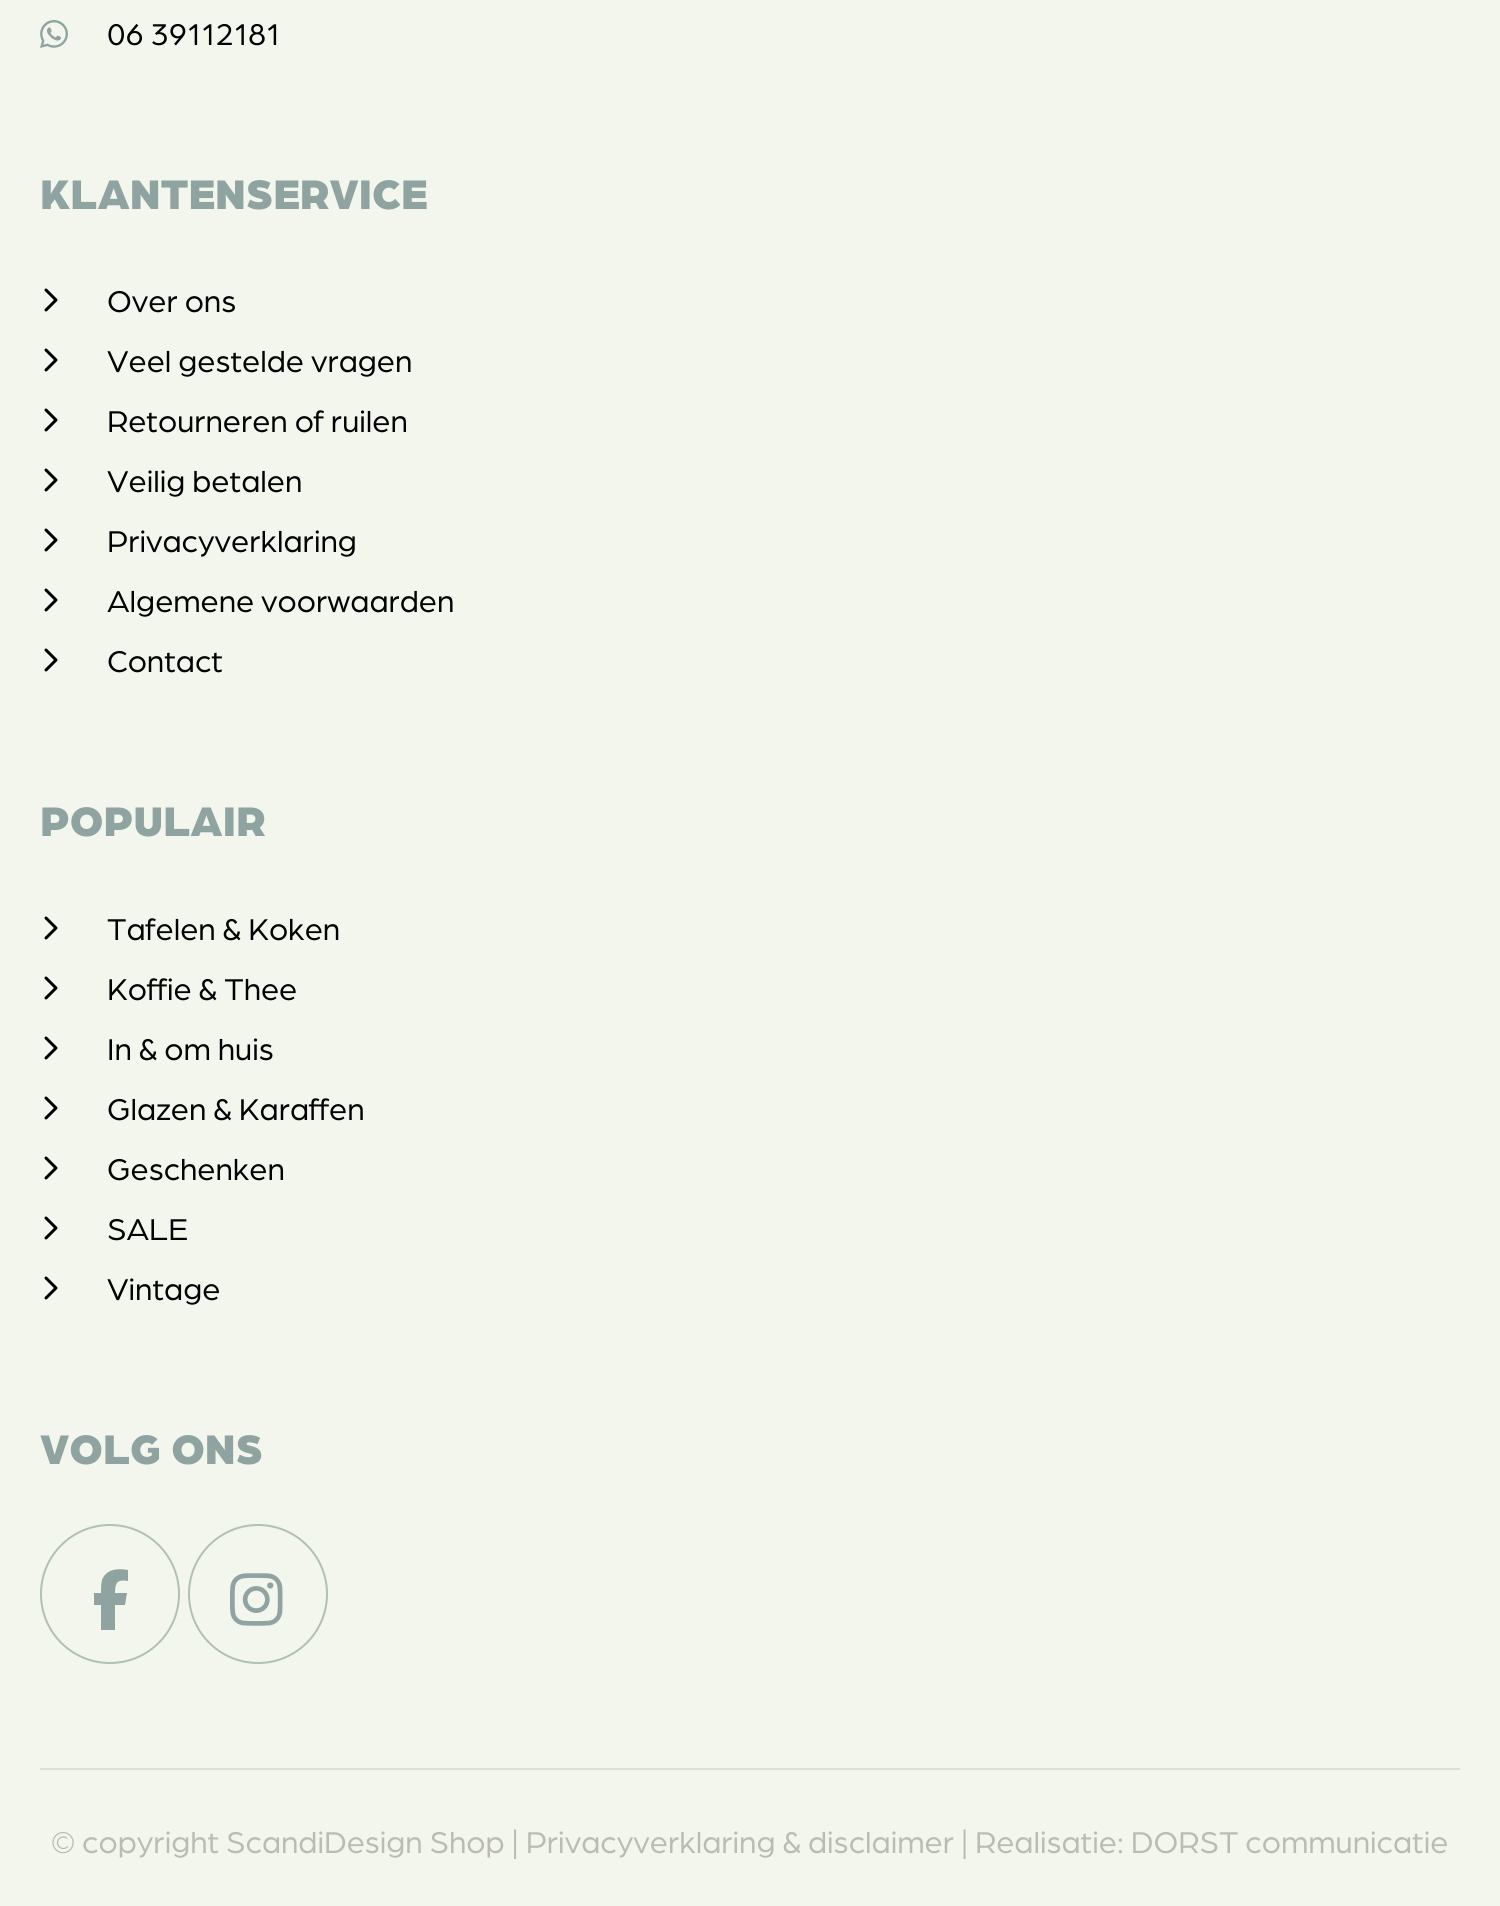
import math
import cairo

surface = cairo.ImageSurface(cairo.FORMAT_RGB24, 1500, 1906)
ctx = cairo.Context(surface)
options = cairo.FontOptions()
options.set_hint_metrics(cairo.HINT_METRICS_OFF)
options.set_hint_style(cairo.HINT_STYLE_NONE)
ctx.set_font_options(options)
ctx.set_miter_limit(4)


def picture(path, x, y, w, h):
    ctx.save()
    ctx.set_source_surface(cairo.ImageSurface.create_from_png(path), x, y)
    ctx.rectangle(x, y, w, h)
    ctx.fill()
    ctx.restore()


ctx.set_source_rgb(0.953, 0.961, 0.929)
ctx.paint()
picture("img1.png", 40, 20, 28, 28)
ctx.select_font_face("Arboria")
ctx.set_font_size(32)
ctx.set_source_rgb(0, 0, 0)
ctx.move_to(107, 45)
ctx.show_text("06 39112181")
ctx.select_font_face("Arboria Black")
ctx.set_font_size(44)
ctx.set_source_rgb(0.561, 0.643, 0.631)
ctx.move_to(40, 209)
ctx.show_text("KLANTENSERVICE")
picture("img2.png", 44, 288, 14, 24)
ctx.select_font_face("Arboria")
ctx.set_font_size(32)
ctx.set_source_rgb(0, 0, 0)
ctx.move_to(107, 312)
ctx.show_text("Over ons")
picture("img2.png", 44, 348, 14, 24)
ctx.move_to(107, 372)
ctx.show_text("Veel gestelde vragen")
picture("img2.png", 44, 408, 14, 24)
ctx.move_to(107, 432)
ctx.show_text("Retourneren of ruilen")
picture("img2.png", 44, 468, 14, 24)
ctx.move_to(107, 492)
ctx.show_text("Veilig betalen")
picture("img2.png", 44, 528, 14, 24)
ctx.move_to(107, 552)
ctx.show_text("Privacyverklaring")
picture("img2.png", 44, 588, 14, 24)
ctx.move_to(107, 612)
ctx.show_text("Algemene voorwaarden")
picture("img2.png", 44, 648, 14, 24)
ctx.move_to(107, 672)
ctx.show_text("Contact")
ctx.select_font_face("Arboria Black")
ctx.set_font_size(44)
ctx.set_source_rgb(0.561, 0.643, 0.631)
ctx.move_to(40, 836)
ctx.show_text("POPULAIR")
picture("img2.png", 44, 916, 14, 24)
ctx.select_font_face("Arboria")
ctx.set_font_size(32)
ctx.set_source_rgb(0, 0, 0)
ctx.move_to(107, 940)
ctx.show_text("Tafelen & Koken")
picture("img2.png", 44, 976, 14, 24)
ctx.move_to(107, 1000)
ctx.show_text("Koffie & Thee")
picture("img2.png", 44, 1036, 14, 24)
ctx.move_to(107, 1060)
ctx.show_text("In & om huis")
picture("img2.png", 44, 1096, 14, 24)
ctx.move_to(107, 1120)
ctx.show_text("Glazen & Karaffen")
picture("img2.png", 44, 1156, 14, 24)
ctx.move_to(107, 1180)
ctx.show_text("Geschenken")
picture("img2.png", 44, 1216, 14, 24)
ctx.move_to(107, 1240)
ctx.show_text("SALE")
picture("img2.png", 44, 1276, 14, 24)
ctx.move_to(107, 1300)
ctx.show_text("Vintage")
ctx.select_font_face("Arboria Black")
ctx.set_font_size(44)
ctx.set_source_rgb(0.561, 0.643, 0.631)
ctx.move_to(40, 1464)
ctx.show_text("VOLG ONS")
ctx.new_path()
ctx.arc(110, 1594, 69, 0, 2 * math.pi)
ctx.set_source_rgb(0.694, 0.753, 0.714)
ctx.stroke()
ctx.set_source_rgb(0.561, 0.643, 0.631)
ctx.new_path()
ctx.move_to(101, 1605)
ctx.line_to(101, 1630)
ctx.line_to(101, 1605)
ctx.line_to(101, 1630)
ctx.line_to(115, 1630)
ctx.line_to(115, 1605)
ctx.line_to(125, 1605)
ctx.line_to(127, 1593)
ctx.line_to(115, 1593)
ctx.curve_to(115, 1583, 117, 1579, 128, 1581)
ctx.line_to(128, 1570)
ctx.curve_to(118, 1568, 106, 1569, 102, 1580)
ctx.curve_to(101, 1584, 101, 1589, 101, 1593)
ctx.line_to(94, 1593)
ctx.line_to(94, 1605)
ctx.close_path()
ctx.fill()
ctx.arc(258, 1594, 69, 0, 2 * math.pi)
ctx.set_source_rgb(0.694, 0.753, 0.714)
ctx.stroke()
picture("img3.png", 230, 1573, 53, 53)
ctx.set_source_rgb(0.851, 0.878, 0.843)
ctx.rectangle(40, 1768, 1420, 2)
ctx.fill()
ctx.select_font_face("Arboria")
ctx.set_font_size(32)
ctx.set_source_rgb(0.729, 0.733, 0.71)
ctx.move_to(51, 1853)
ctx.show_text("© copyright ScandiDesign Shop | Privacyverklaring & disclaimer | Realisatie: DORST communicatie")
surface.write_to_png("page.png")
